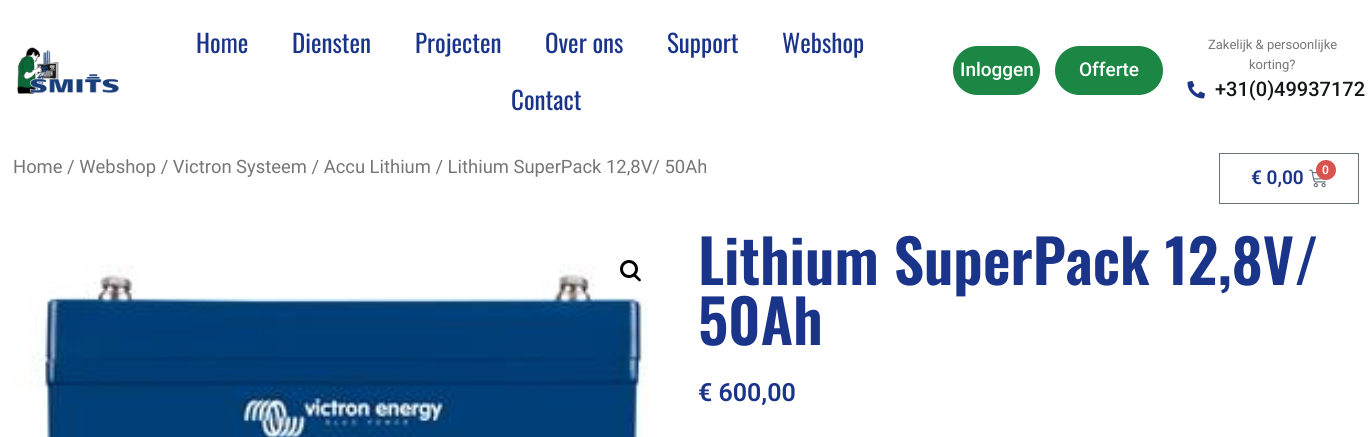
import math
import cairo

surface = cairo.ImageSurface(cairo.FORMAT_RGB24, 1371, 437)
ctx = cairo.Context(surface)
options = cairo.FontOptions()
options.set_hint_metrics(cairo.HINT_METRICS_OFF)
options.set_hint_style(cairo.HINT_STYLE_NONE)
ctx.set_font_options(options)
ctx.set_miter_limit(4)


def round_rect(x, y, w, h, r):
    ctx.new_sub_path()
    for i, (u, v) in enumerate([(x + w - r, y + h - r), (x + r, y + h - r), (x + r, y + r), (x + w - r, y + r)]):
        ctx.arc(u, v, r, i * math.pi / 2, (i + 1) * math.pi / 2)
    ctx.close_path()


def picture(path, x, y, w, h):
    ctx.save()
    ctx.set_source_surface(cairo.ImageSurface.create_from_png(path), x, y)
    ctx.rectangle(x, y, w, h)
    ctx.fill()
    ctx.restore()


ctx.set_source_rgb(1, 1, 1)
ctx.paint()
picture("img1.png", 17, 47, 102, 47)
ctx.select_font_face("Oswald")
ctx.set_font_size(25)
ctx.set_source_rgb(0.102, 0.204, 0.541)
ctx.move_to(196, 53)
ctx.show_text("Home")
ctx.move_to(292, 53)
ctx.show_text("Diensten")
ctx.move_to(415, 53)
ctx.show_text("Projecten")
ctx.move_to(545, 53)
ctx.show_text("Over ons")
ctx.move_to(667, 53)
ctx.show_text("Support")
ctx.move_to(782, 53)
ctx.show_text("Webshop")
ctx.move_to(511, 110)
ctx.show_text("Contact")
ctx.set_source_rgb(0.11, 0.525, 0.267)
round_rect(953, 46, 87, 49, 24.5)
ctx.fill()
ctx.select_font_face("Roboto Medium")
ctx.set_font_size(19)
ctx.set_source_rgb(1, 1, 1)
ctx.move_to(960, 76)
ctx.show_text("Inloggen")
ctx.set_source_rgb(0.11, 0.525, 0.267)
round_rect(1055, 46, 108, 49, 24.5)
ctx.fill()
ctx.set_source_rgb(1, 1, 1)
ctx.move_to(1079, 76)
ctx.show_text("Offerte")
ctx.select_font_face("Roboto")
ctx.set_font_size(13)
ctx.set_source_rgb(0.463, 0.463, 0.463)
ctx.move_to(1208, 49)
ctx.show_text("Zakelijk & persoonlijke")
ctx.move_to(1249, 69)
ctx.show_text("korting?")
picture("img2.png", 1187, 81, 18, 18)
ctx.select_font_face("Roboto Medium")
ctx.set_font_size(20)
ctx.set_source_rgb(0.067, 0.09, 0.09)
ctx.move_to(1215, 96)
ctx.show_text("+31(0)49937172")
ctx.select_font_face("Roboto")
ctx.set_font_size(18.4)
ctx.set_source_rgb(0.463, 0.463, 0.463)
ctx.move_to(13, 173)
ctx.show_text("Home / Webshop / Victron Systeem / Accu Lithium / Lithium SuperPack 12,8V/ 50Ah")
ctx.rectangle(1219.5, 153.5, 139, 50)
ctx.set_source_rgb(0.412, 0.447, 0.49)
ctx.set_line_width(1)
ctx.stroke()
ctx.select_font_face("Roboto SemiBold")
ctx.set_font_size(19)
ctx.set_source_rgb(0.102, 0.204, 0.541)
ctx.move_to(1251, 184)
ctx.show_text("€ 0,00")
picture("img3.png", 1309, 169, 17, 19)
ctx.set_source_rgb(0.851, 0.325, 0.31)
ctx.arc(1326, 170, 10, 0, 2 * math.pi)
ctx.fill()
ctx.set_font_size(12)
ctx.set_source_rgb(1, 1, 1)
ctx.move_to(1322, 174)
ctx.show_text("0")
picture("img4.png", 13, 264, 635, 173)
ctx.arc(629, 269, 7.5, 0, 2 * math.pi)
ctx.set_source_rgb(0, 0, 0)
ctx.set_line_width(3)
ctx.stroke()
ctx.new_path()
ctx.move_to(633.5, 274)
ctx.curve_to(635, 272.5, 637, 276, 638, 276.5)
ctx.curve_to(638.5, 277.5, 642, 279.5, 640.5, 281)
ctx.curve_to(639, 282.5, 637, 279, 636, 278.5)
ctx.curve_to(635, 277.5, 632, 275.5, 633.5, 274)
ctx.close_path()
ctx.fill()
ctx.select_font_face("Oswald SemiBold")
ctx.set_font_size(60)
ctx.set_source_rgb(0.102, 0.204, 0.541)
ctx.move_to(698, 285)
ctx.show_text("Lithium SuperPack 12,8V/")
ctx.move_to(698, 345)
ctx.show_text("50Ah")
ctx.select_font_face("Roboto SemiBold")
ctx.set_font_size(25)
ctx.move_to(698, 401)
ctx.show_text("€ 600,00")
surface.write_to_png("page.png")
